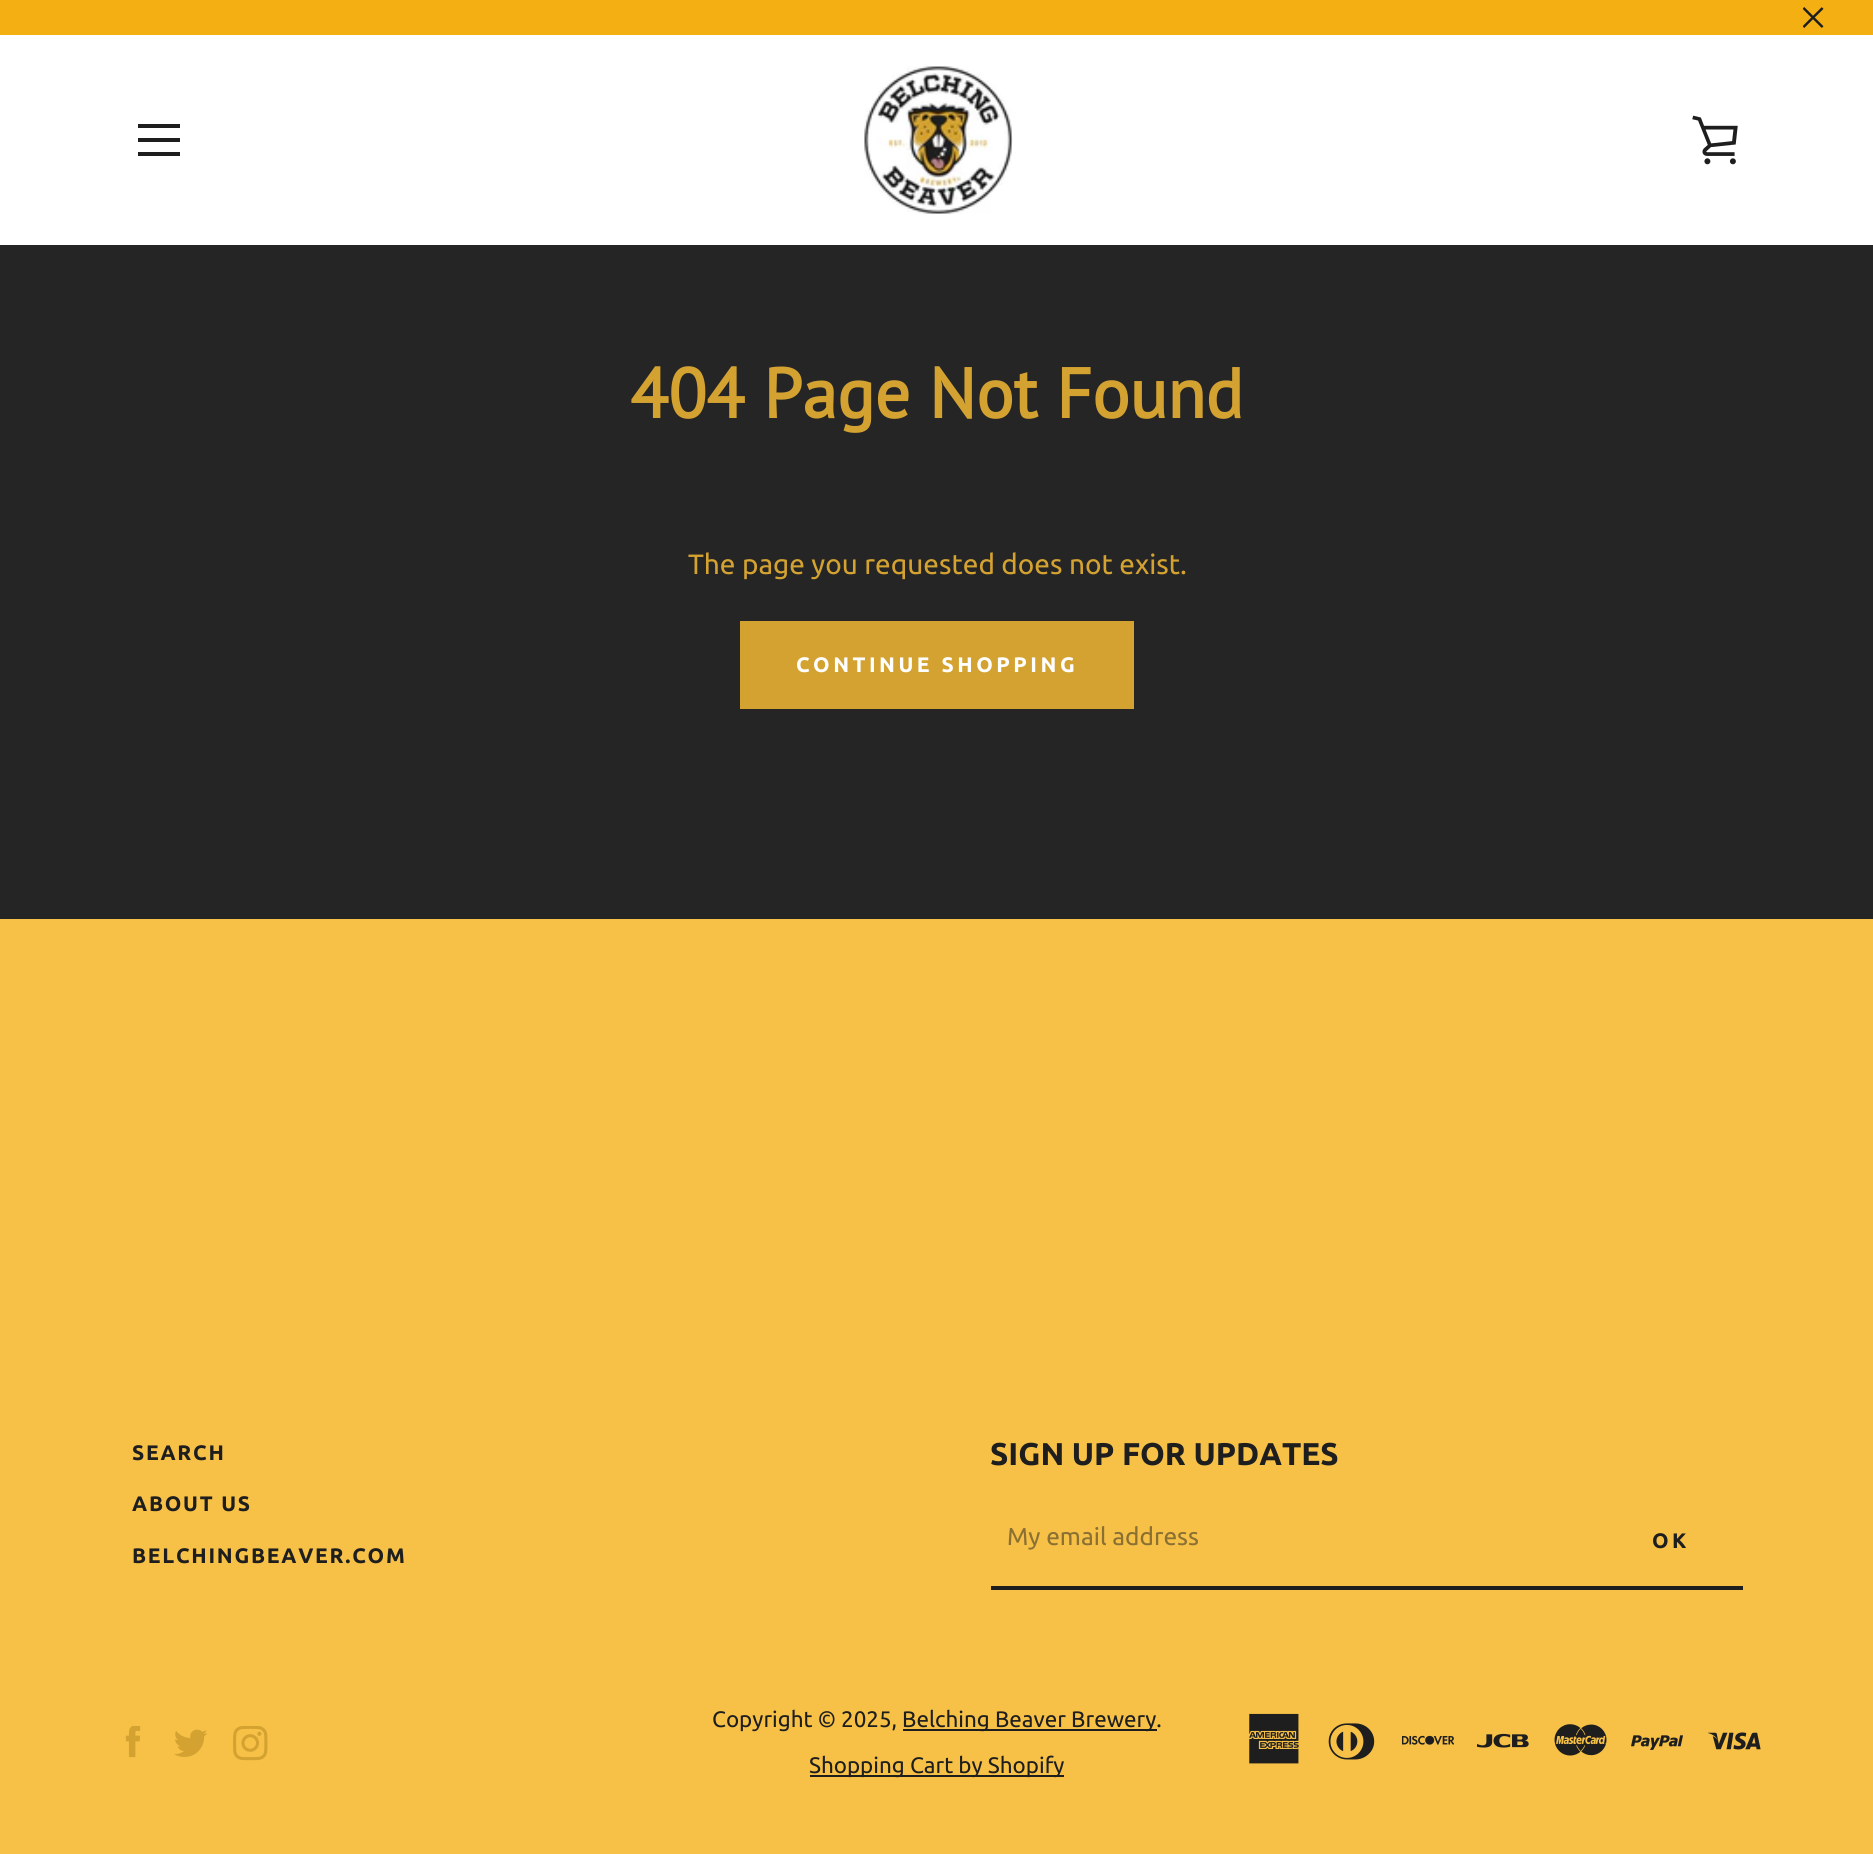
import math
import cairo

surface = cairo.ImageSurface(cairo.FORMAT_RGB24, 1873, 1854)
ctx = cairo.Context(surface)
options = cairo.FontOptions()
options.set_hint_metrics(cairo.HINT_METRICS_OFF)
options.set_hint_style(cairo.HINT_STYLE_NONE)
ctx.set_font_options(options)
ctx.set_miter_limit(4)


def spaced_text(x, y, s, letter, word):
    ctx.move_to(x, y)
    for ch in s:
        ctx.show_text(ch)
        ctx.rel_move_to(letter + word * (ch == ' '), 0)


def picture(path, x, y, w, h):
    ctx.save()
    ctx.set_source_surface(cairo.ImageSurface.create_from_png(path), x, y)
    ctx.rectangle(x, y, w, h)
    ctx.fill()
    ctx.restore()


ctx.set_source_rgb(0.965, 0.757, 0.278)
ctx.paint()
ctx.set_source_rgb(0.145, 0.145, 0.145)
ctx.rectangle(0, 245, 1873, 674)
ctx.fill()
ctx.set_source_rgb(1, 1, 1)
ctx.rectangle(0, 35, 1873, 210)
ctx.fill()
ctx.set_source_rgb(0.957, 0.69, 0.078)
ctx.rectangle(0, 0, 1873, 35)
ctx.fill()
picture("img1.png", 1803, 7, 21, 21)
ctx.set_source_rgb(0.118, 0.118, 0.118)
ctx.rectangle(138, 124, 42, 4)
ctx.fill()
ctx.rectangle(138, 138, 42, 4)
ctx.fill()
ctx.rectangle(138, 152, 42, 4)
ctx.fill()
picture("img2.png", 864, 66, 149, 148)
picture("img3.png", 1692, 115, 46, 50)
ctx.select_font_face("PT Sans", cairo.FONT_SLANT_NORMAL, cairo.FONT_WEIGHT_BOLD)
ctx.set_font_size(70)
ctx.set_source_rgb(0.831, 0.635, 0.192)
ctx.move_to(630, 418)
ctx.show_text("404 Page Not Found")
ctx.select_font_face("Ubuntu")
ctx.set_font_size(28)
ctx.move_to(688, 574)
ctx.show_text("The page you requested does not exist.")
ctx.rectangle(740, 621, 394, 88)
ctx.fill()
ctx.select_font_face("Ubuntu", cairo.FONT_SLANT_NORMAL, cairo.FONT_WEIGHT_BOLD)
ctx.set_font_size(21)
ctx.set_source_rgb(1, 1, 1)
spaced_text(796, 672, "CONTINUE SHOPPING", 3.5, 0)
ctx.set_source_rgb(0.118, 0.118, 0.118)
spaced_text(132, 1460, "SEARCH", 1.75, 0)
spaced_text(132, 1511, "ABOUT US", 1.75, 0)
spaced_text(132, 1563, "BELCHINGBEAVER.COM", 1.75, 0)
ctx.set_font_size(31.5)
ctx.move_to(990, 1465)
ctx.show_text("SIGN UP FOR UPDATES")
ctx.rectangle(991, 1586, 752, 4)
ctx.fill()
ctx.select_font_face("Ubuntu")
ctx.set_font_size(24.5)
ctx.set_source_rgb(0.541, 0.439, 0.2)
ctx.move_to(1007, 1545)
ctx.show_text("My email address")
ctx.select_font_face("Ubuntu", cairo.FONT_SLANT_NORMAL, cairo.FONT_WEIGHT_BOLD)
ctx.set_font_size(21)
ctx.set_source_rgb(0.118, 0.118, 0.118)
spaced_text(1652, 1548, "OK", 3.5, 0)
picture("img4.png", 125, 1726, 16, 32)
picture("img5.png", 174, 1729, 33, 28)
picture("img6.png", 233, 1726, 35, 35)
ctx.select_font_face("Ubuntu")
ctx.set_font_size(22.4)
ctx.move_to(712, 1727)
ctx.show_text("Copyright © 2025,")
ctx.rectangle(903, 1729, 254, 2)
ctx.fill()
ctx.move_to(902, 1727)
ctx.show_text("Belching Beaver Brewery.")
ctx.rectangle(810, 1775, 254, 2)
ctx.fill()
ctx.move_to(809, 1773)
ctx.show_text("Shopping Cart by Shopify")
picture("img7.png", 1249, 1713, 50, 51)
picture("img8.png", 1328, 1723, 47, 37)
picture("img9.png", 1402, 1735, 52, 10)
picture("img10.png", 1477, 1733, 52, 15)
picture("img11.png", 1554, 1724, 53, 32)
picture("img12.png", 1631, 1735, 52, 15)
picture("img13.png", 1708, 1732, 53, 18)
surface.write_to_png("page.png")
